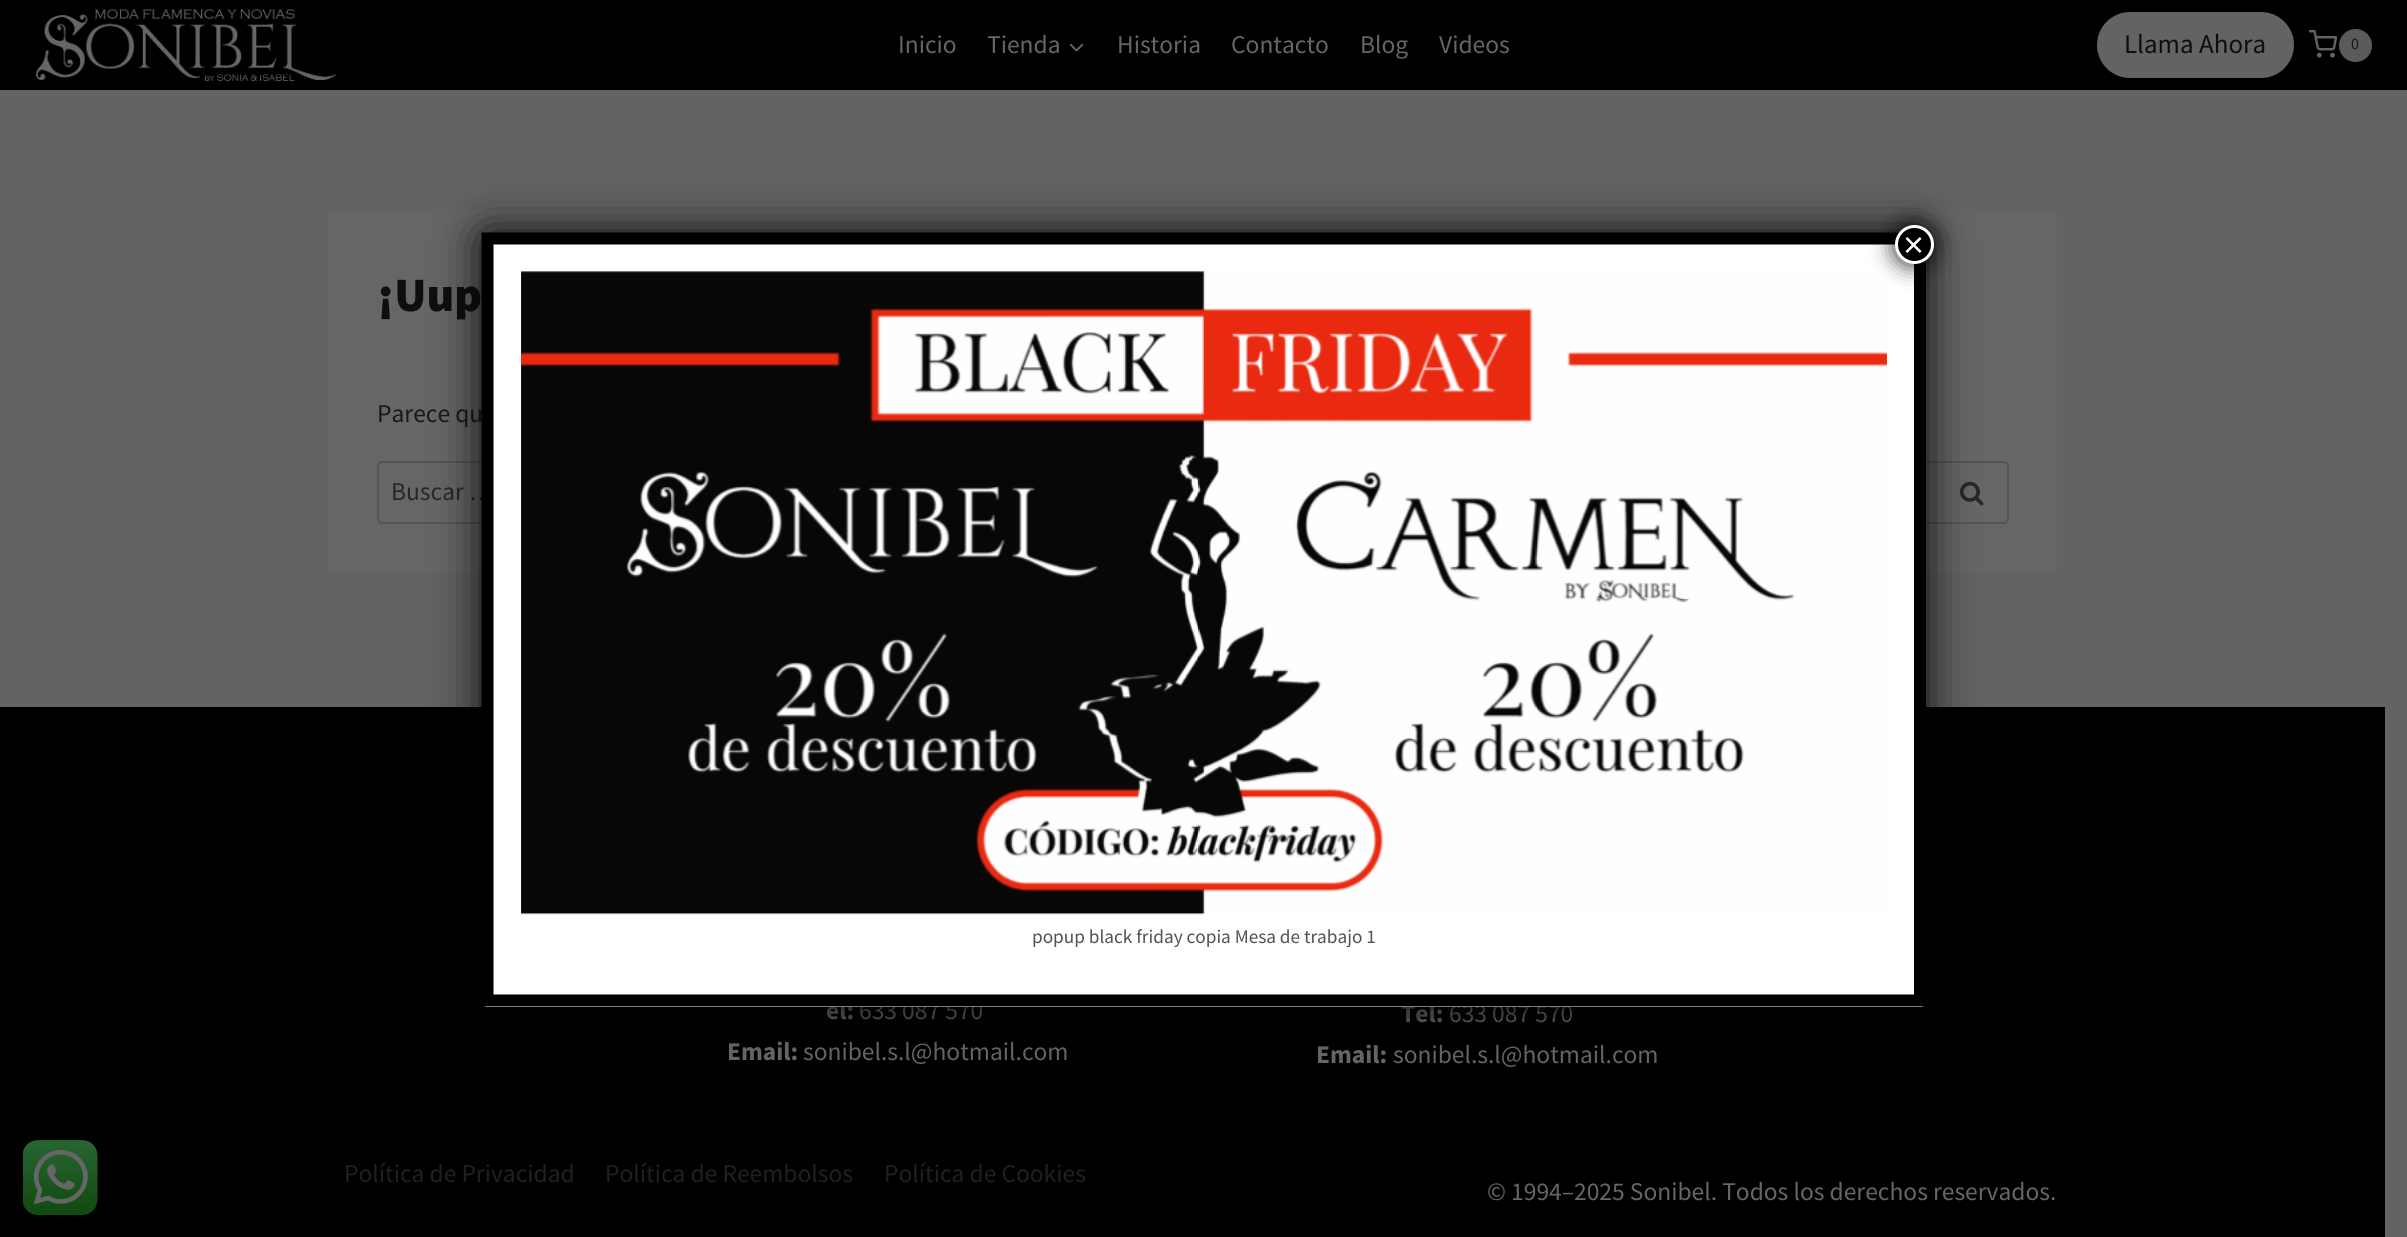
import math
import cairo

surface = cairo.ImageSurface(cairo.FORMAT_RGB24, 2407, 1237)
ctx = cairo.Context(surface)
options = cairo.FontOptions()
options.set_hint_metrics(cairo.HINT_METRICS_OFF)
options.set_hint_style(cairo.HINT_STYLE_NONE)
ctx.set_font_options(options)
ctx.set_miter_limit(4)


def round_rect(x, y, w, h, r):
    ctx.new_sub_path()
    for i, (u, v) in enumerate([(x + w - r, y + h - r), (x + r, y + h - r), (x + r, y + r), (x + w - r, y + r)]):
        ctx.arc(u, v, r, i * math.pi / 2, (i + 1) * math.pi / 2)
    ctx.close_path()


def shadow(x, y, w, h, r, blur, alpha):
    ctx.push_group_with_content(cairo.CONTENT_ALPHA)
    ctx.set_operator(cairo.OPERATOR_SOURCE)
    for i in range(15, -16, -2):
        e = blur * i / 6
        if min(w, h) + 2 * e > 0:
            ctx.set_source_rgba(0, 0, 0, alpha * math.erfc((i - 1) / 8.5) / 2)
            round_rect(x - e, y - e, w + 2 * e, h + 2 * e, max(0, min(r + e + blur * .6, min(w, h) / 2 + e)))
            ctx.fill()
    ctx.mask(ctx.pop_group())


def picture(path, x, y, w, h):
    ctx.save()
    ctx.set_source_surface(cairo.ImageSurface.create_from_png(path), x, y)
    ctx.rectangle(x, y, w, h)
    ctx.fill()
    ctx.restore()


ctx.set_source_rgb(0.388, 0.388, 0.388)
ctx.paint()
ctx.set_source_rgb(0, 0, 0)
ctx.rectangle(0, 0, 2407, 90)
ctx.fill()
picture("img1.png", 36, 8, 300, 74)
ctx.select_font_face("Source Sans Pro")
ctx.set_font_size(25.5)
ctx.set_source_rgb(0.4, 0.4, 0.4)
ctx.move_to(898, 53)
ctx.show_text("Inicio")
ctx.move_to(987, 53)
ctx.show_text("Tienda")
picture("img2.png", 1069, 43, 15, 9)
ctx.move_to(1117, 53)
ctx.show_text("Historia")
ctx.move_to(1231, 53)
ctx.show_text("Contacto")
ctx.move_to(1360, 53)
ctx.show_text("Blog")
ctx.move_to(1439, 53)
ctx.show_text("Videos")
ctx.set_source_rgb(0.388, 0.388, 0.388)
round_rect(2097, 12, 197, 66, 33)
ctx.fill()
ctx.set_font_size(27)
ctx.set_source_rgb(0.055, 0.055, 0.055)
ctx.move_to(2124, 53)
ctx.show_text("Llama Ahora")
picture("img3.png", 2309, 30, 28, 28)
ctx.set_source_rgb(0.353, 0.353, 0.353)
ctx.arc(2355.5, 45.5, 16.5, 0, 2 * math.pi)
ctx.fill()
ctx.set_font_size(16)
ctx.set_source_rgb(0.094, 0.094, 0.094)
ctx.move_to(2351, 49)
ctx.show_text("0")
ctx.set_source_rgb(0.4, 0.4, 0.4)
round_rect(329, 210, 1728, 362, 6)
ctx.fill()
ctx.select_font_face("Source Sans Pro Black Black")
ctx.set_font_size(48)
ctx.set_source_rgb(0.055, 0.055, 0.055)
ctx.move_to(377, 311)
ctx.show_text("¡Uup")
ctx.select_font_face("Source Sans Pro")
ctx.set_font_size(25.5)
ctx.set_source_rgb(0.094, 0.094, 0.094)
ctx.move_to(377, 422)
ctx.show_text("Parece qu")
round_rect(378, 462, 1630, 61, 4)
ctx.set_source_rgb(0.318, 0.333, 0.353)
ctx.stroke()
ctx.set_source_rgb(0.153, 0.153, 0.153)
ctx.move_to(391, 500)
ctx.show_text("Buscar …")
picture("img4.png", 1959, 481, 25, 25)
ctx.set_source_rgb(0, 0, 0)
ctx.rectangle(0, 707, 2385, 530)
ctx.fill()
ctx.select_font_face("Source Sans Pro", cairo.FONT_SLANT_NORMAL, cairo.FONT_WEIGHT_BOLD)
ctx.set_source_rgb(0.4, 0.4, 0.4)
ctx.move_to(826, 1019)
ctx.show_text("el:")
ctx.select_font_face("Source Sans Pro")
ctx.move_to(859, 1019)
ctx.show_text("633 087 570")
ctx.select_font_face("Source Sans Pro", cairo.FONT_SLANT_NORMAL, cairo.FONT_WEIGHT_BOLD)
ctx.move_to(727, 1060)
ctx.show_text("Email:")
ctx.select_font_face("Source Sans Pro")
ctx.move_to(803, 1060)
ctx.show_text("sonibel.s.l@hotmail.com")
ctx.select_font_face("Source Sans Pro", cairo.FONT_SLANT_NORMAL, cairo.FONT_WEIGHT_BOLD)
ctx.move_to(1401, 1022)
ctx.show_text("Tel:")
ctx.select_font_face("Source Sans Pro")
ctx.move_to(1449, 1022)
ctx.show_text("633 087 570")
ctx.select_font_face("Source Sans Pro", cairo.FONT_SLANT_NORMAL, cairo.FONT_WEIGHT_BOLD)
ctx.move_to(1316, 1063)
ctx.show_text("Email:")
ctx.select_font_face("Source Sans Pro")
ctx.move_to(1393, 1063)
ctx.show_text("sonibel.s.l@hotmail.com")
ctx.set_source_rgb(0.125, 0.125, 0.125)
ctx.move_to(344, 1182)
ctx.show_text("Política de Privacidad")
ctx.move_to(605, 1182)
ctx.show_text("Política de Reembolsos")
ctx.move_to(884, 1182)
ctx.show_text("Política de Cookies")
ctx.set_source_rgb(0.4, 0.4, 0.4)
ctx.move_to(1487, 1200)
ctx.show_text("© 1994–2025 Sonibel. Todos los derechos reservados.")
ctx.set_source_rgb(0.008, 0.008, 0.008)
shadow(482, 233, 1444, 774, 5, 22.5, 1)
ctx.set_source_rgb(1, 1, 1)
round_rect(482, 233, 1444, 774, 5)
ctx.fill()
ctx.new_path()
ctx.move_to(487.5, 238.5)
ctx.line_to(1920, 238.5)
ctx.line_to(1920, 1000.5)
ctx.line_to(487.5, 1000.5)
ctx.close_path()
ctx.set_source_rgb(0, 0, 0)
ctx.set_line_width(12)
ctx.stroke()
picture("img5.png", 521, 271, 1366, 644)
ctx.set_source_rgb(0.008, 0.008, 0.008)
shadow(1893, 224, 42, 42, 21, 11, 0.75)
ctx.set_source_rgb(0, 0, 0)
ctx.arc(1914.5, 244.5, 18, 0, 2 * math.pi)
ctx.fill_preserve()
ctx.set_source_rgb(1, 1, 1)
ctx.set_line_width(3)
ctx.stroke()
ctx.select_font_face("Liberation Sans")
ctx.set_font_size(36)
ctx.move_to(1903, 257)
ctx.show_text("×")
ctx.select_font_face("Source Sans Pro")
ctx.set_font_size(19.25)
ctx.set_source_rgb(0.318, 0.318, 0.318)
ctx.move_to(1032, 943)
ctx.show_text("popup black friday copia Mesa de trabajo 1")
picture("img6.png", 23, 1140, 75, 75)
surface.write_to_png("page.png")
